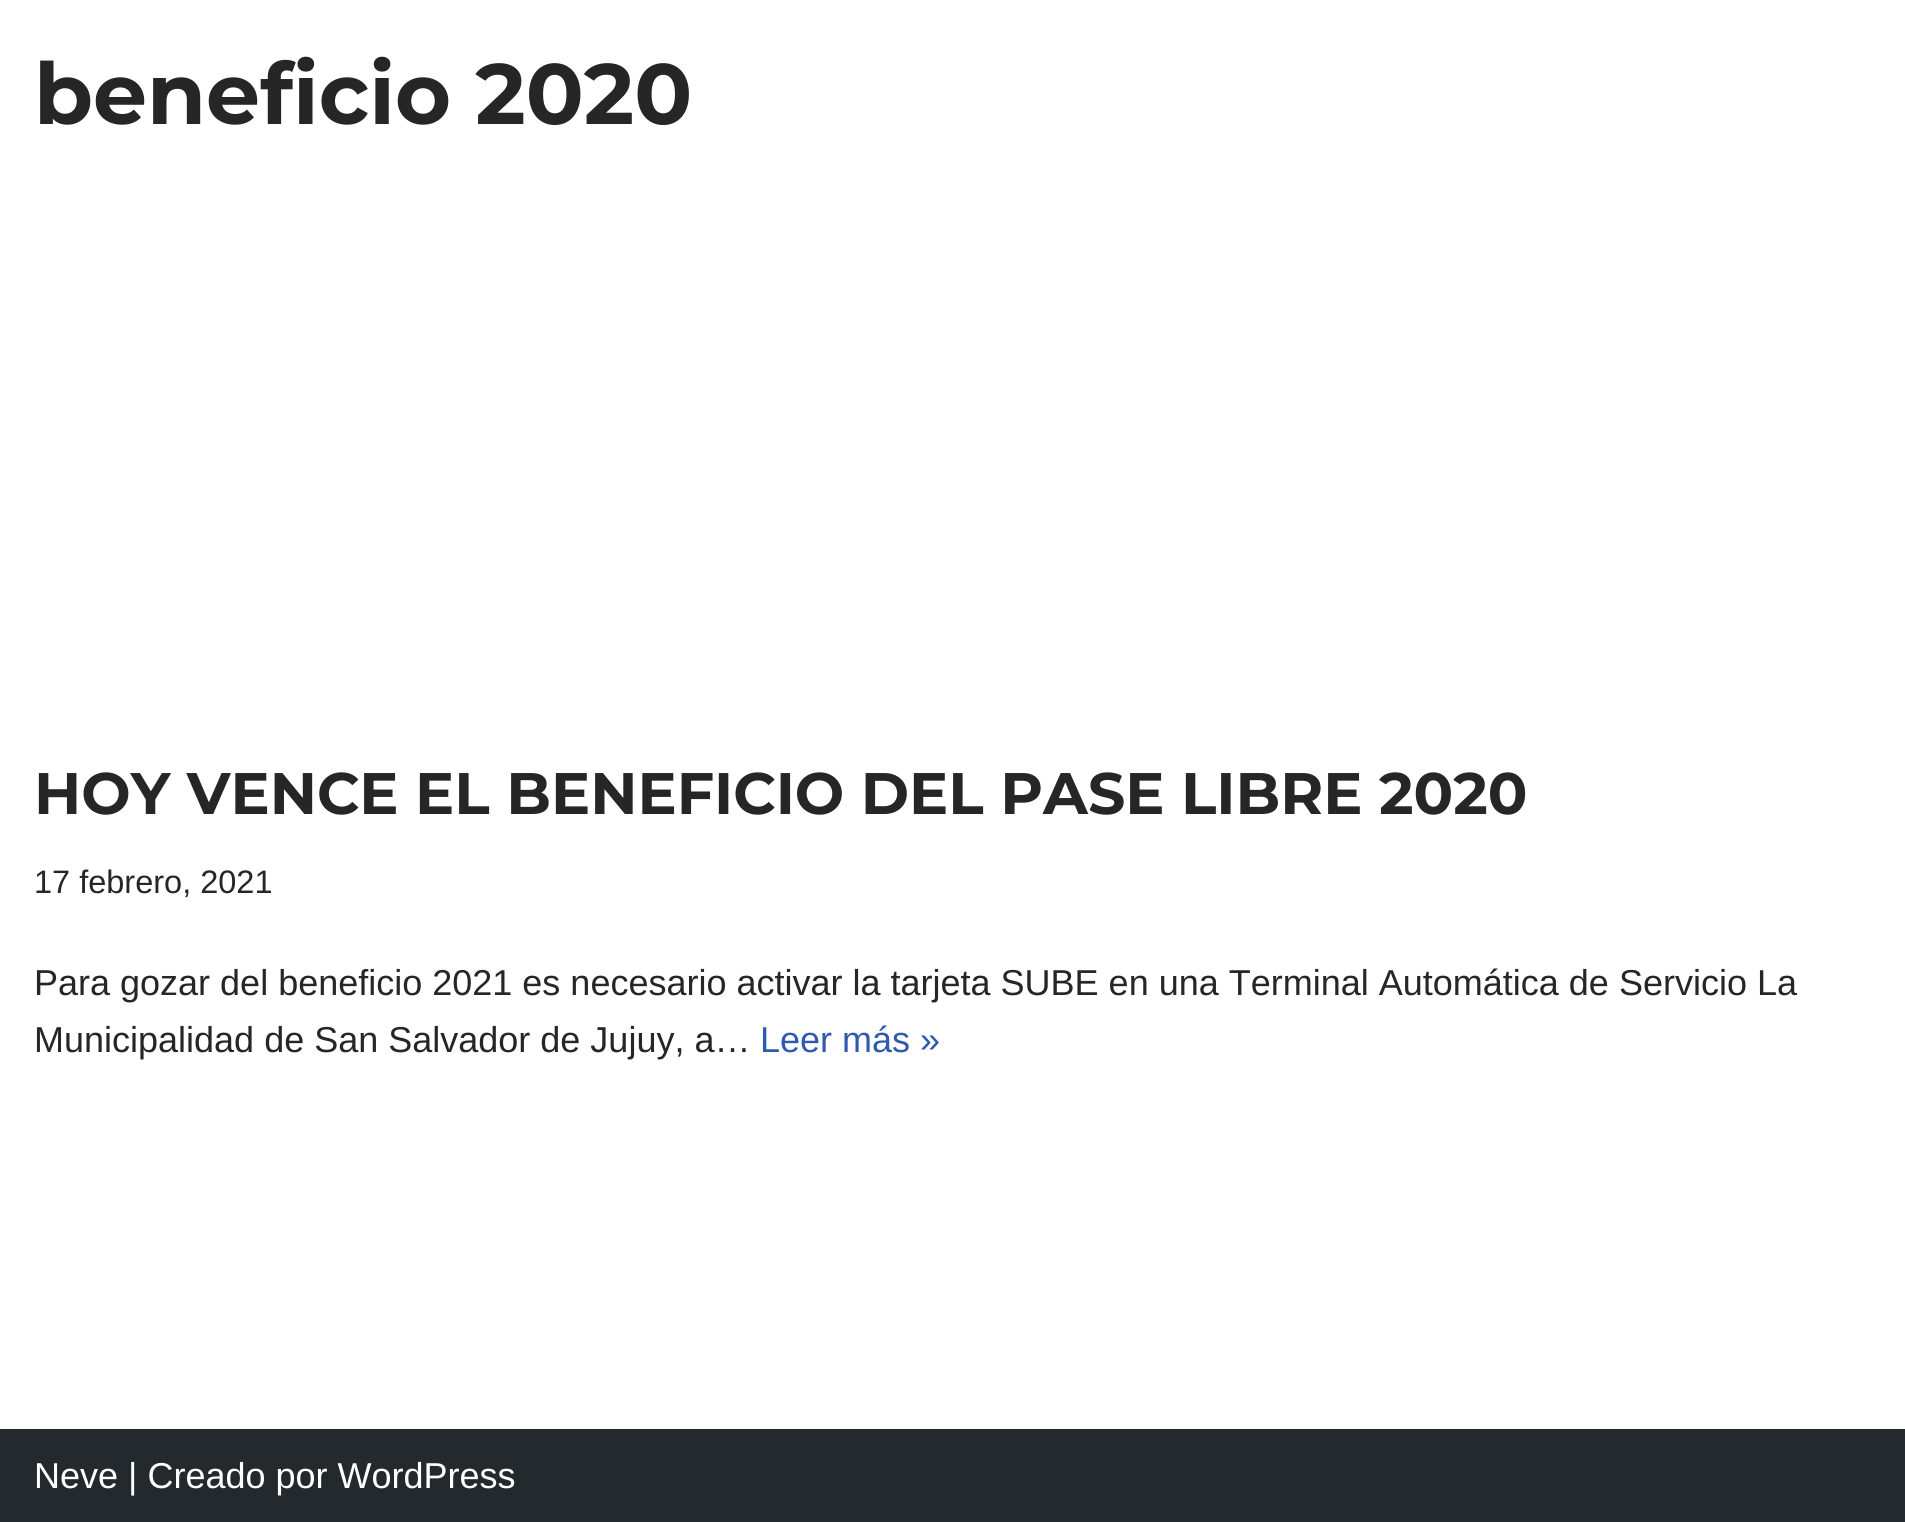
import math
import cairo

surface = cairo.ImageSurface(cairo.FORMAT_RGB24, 1905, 1522)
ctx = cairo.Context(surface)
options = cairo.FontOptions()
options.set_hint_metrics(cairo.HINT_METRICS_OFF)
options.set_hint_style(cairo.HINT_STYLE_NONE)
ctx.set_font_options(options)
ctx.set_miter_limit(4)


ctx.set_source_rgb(1, 1, 1)
ctx.paint()
ctx.select_font_face("Montserrat", cairo.FONT_SLANT_NORMAL, cairo.FONT_WEIGHT_BOLD)
ctx.set_font_size(85.5)
ctx.set_source_rgb(0.153, 0.149, 0.149)
ctx.move_to(34, 124)
ctx.show_text("beneficio 2020")
ctx.set_font_size(58.5)
ctx.move_to(34, 814)
ctx.show_text("HOY VENCE EL BENEFICIO DEL PASE LIBRE 2020")
ctx.select_font_face("Liberation Sans")
ctx.set_font_size(32.5)
ctx.move_to(34, 893)
ctx.show_text("17 febrero, 2021")
ctx.set_font_size(36)
ctx.move_to(34, 995)
ctx.show_text("Para gozar del beneficio 2021 es necesario activar la tarjeta SUBE en una Terminal Automática de Servicio La")
ctx.move_to(34, 1052)
ctx.show_text("Municipalidad de San Salvador de Jujuy, a…")
ctx.set_source_rgb(0.184, 0.353, 0.682)
ctx.move_to(760, 1052)
ctx.show_text("Leer más »")
ctx.set_source_rgb(0.141, 0.161, 0.18)
ctx.rectangle(0, 1429, 1905, 93)
ctx.fill()
ctx.set_source_rgb(1, 1, 1)
ctx.move_to(34, 1488)
ctx.show_text("Neve | Creado por WordPress")
surface.write_to_png("page.png")
